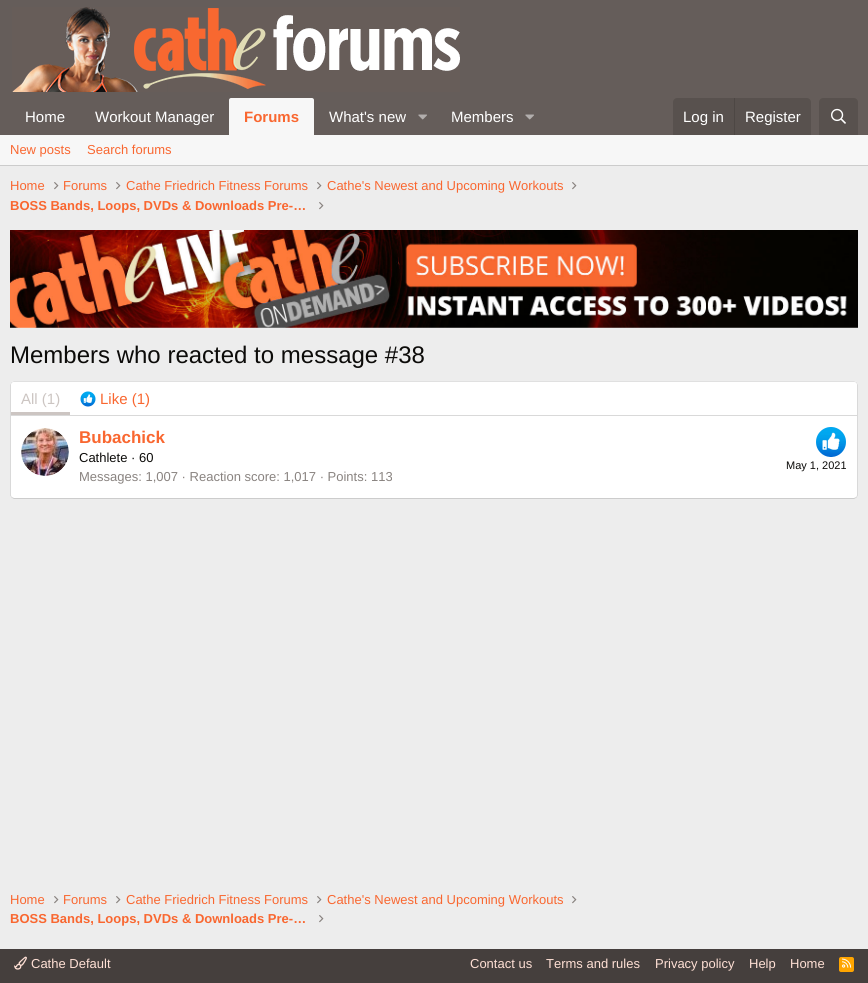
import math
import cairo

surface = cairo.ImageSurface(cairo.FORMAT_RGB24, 868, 983)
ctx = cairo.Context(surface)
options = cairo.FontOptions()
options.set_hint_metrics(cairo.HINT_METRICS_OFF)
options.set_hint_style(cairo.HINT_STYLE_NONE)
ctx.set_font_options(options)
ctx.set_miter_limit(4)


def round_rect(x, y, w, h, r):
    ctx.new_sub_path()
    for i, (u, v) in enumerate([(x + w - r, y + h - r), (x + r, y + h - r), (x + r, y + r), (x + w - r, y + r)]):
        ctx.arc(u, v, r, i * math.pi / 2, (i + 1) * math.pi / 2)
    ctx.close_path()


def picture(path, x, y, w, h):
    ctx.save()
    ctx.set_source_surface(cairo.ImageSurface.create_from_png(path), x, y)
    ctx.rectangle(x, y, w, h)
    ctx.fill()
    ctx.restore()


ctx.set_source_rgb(0.929, 0.929, 0.929)
ctx.paint()
ctx.set_source_rgb(0.396, 0.365, 0.353)
ctx.rectangle(0, 0, 868, 135)
ctx.fill()
picture("img1.png", 12, 7, 448, 85)
ctx.select_font_face("Liberation Sans")
ctx.set_font_size(15)
ctx.set_source_rgb(1, 1, 1)
ctx.move_to(25, 122)
ctx.show_text("Home")
ctx.move_to(95, 122)
ctx.show_text("Workout Manager")
ctx.set_source_rgb(0.965, 0.965, 0.965)
ctx.new_path()
ctx.move_to(231, 98)
ctx.line_to(312, 98)
ctx.curve_to(313, 98, 314, 99, 314, 100)
ctx.line_to(314, 135)
ctx.line_to(229, 135)
ctx.line_to(229, 100)
ctx.curve_to(229, 99, 230, 98, 231, 98)
ctx.close_path()
ctx.fill()
ctx.select_font_face("Liberation Sans", cairo.FONT_SLANT_NORMAL, cairo.FONT_WEIGHT_BOLD)
ctx.set_source_rgb(0.973, 0.404, 0.188)
ctx.move_to(244, 122)
ctx.show_text("Forums")
ctx.select_font_face("Liberation Sans")
ctx.set_source_rgb(1, 1, 1)
ctx.move_to(329, 122)
ctx.show_text("What's new")
picture("img2.png", 418, 114, 9, 6)
ctx.move_to(451, 122)
ctx.show_text("Members")
picture("img2.png", 525, 114, 9, 6)
ctx.set_source_rgb(0.345, 0.318, 0.306)
ctx.new_path()
ctx.move_to(677, 98)
ctx.line_to(807, 98)
ctx.curve_to(809, 98, 811, 100, 811, 102)
ctx.line_to(811, 135)
ctx.line_to(673, 135)
ctx.line_to(673, 102)
ctx.curve_to(673, 100, 675, 98, 677, 98)
ctx.close_path()
ctx.fill()
ctx.set_source_rgb(1, 1, 1)
ctx.move_to(683, 122)
ctx.show_text("Log in")
ctx.set_source_rgb(0.302, 0.278, 0.267)
ctx.rectangle(734, 98, 1, 37)
ctx.fill()
ctx.set_source_rgb(1, 1, 1)
ctx.move_to(745, 122)
ctx.show_text("Register")
ctx.set_source_rgb(0.345, 0.318, 0.306)
ctx.new_path()
ctx.move_to(823, 98)
ctx.line_to(854, 98)
ctx.curve_to(856, 98, 858, 100, 858, 102)
ctx.line_to(858, 135)
ctx.line_to(819, 135)
ctx.line_to(819, 102)
ctx.curve_to(819, 100, 821, 98, 823, 98)
ctx.close_path()
ctx.fill()
picture("img3.png", 831, 108, 15, 16)
ctx.set_source_rgb(0.965, 0.965, 0.965)
ctx.rectangle(0, 135, 868, 30)
ctx.fill()
ctx.set_source_rgb(0.8, 0.8, 0.8)
ctx.rectangle(0, 165, 868, 1)
ctx.fill()
ctx.set_font_size(13)
ctx.set_source_rgb(0.973, 0.404, 0.188)
ctx.move_to(10, 154)
ctx.show_text("New posts")
ctx.move_to(87, 154)
ctx.show_text("Search forums")
ctx.move_to(10, 190)
ctx.show_text("Home")
picture("img4.png", 54, 182, 5, 8)
ctx.move_to(63, 190)
ctx.show_text("Forums")
picture("img4.png", 116, 182, 5, 8)
ctx.move_to(126, 190)
ctx.show_text("Cathe Friedrich Fitness Forums")
picture("img4.png", 317, 182, 5, 8)
ctx.move_to(327, 190)
ctx.show_text("Cathe's Newest and Upcoming Workouts")
picture("img4.png", 572, 182, 5, 8)
ctx.select_font_face("Liberation Sans", cairo.FONT_SLANT_NORMAL, cairo.FONT_WEIGHT_BOLD)
ctx.move_to(10, 210)
ctx.show_text("BOSS Bands, Loops, DVDs & Downloads Pre-…")
picture("img4.png", 319, 202, 5, 8)
picture("img5.png", 10, 230, 848, 98)
ctx.select_font_face("Liberation Sans")
ctx.set_font_size(24)
ctx.set_source_rgb(0.047, 0.043, 0.039)
ctx.move_to(10, 363)
ctx.show_text("Members who reacted to message #38")
ctx.set_source_rgb(1, 1, 1)
round_rect(10, 381, 848, 118, 4)
ctx.fill()
ctx.new_path()
ctx.move_to(11.5, 382.5)
ctx.line_to(14, 381.5)
ctx.line_to(854, 381.5)
ctx.line_to(856.5, 382.5)
ctx.set_source_rgb(0.878, 0.878, 0.878)
ctx.set_line_width(1)
ctx.stroke()
ctx.new_path()
ctx.move_to(856.5, 382.5)
ctx.line_to(857.5, 385)
ctx.line_to(857.5, 495.5)
ctx.line_to(856.5, 497.5)
ctx.set_source_rgb(0.851, 0.851, 0.851)
ctx.stroke()
ctx.new_path()
ctx.move_to(856.5, 497.5)
ctx.line_to(854, 498.5)
ctx.line_to(14, 498.5)
ctx.line_to(11.5, 497.5)
ctx.set_source_rgb(0.8, 0.8, 0.8)
ctx.stroke()
ctx.new_path()
ctx.move_to(11.5, 497.5)
ctx.line_to(10.5, 495.5)
ctx.line_to(10.5, 403.5)
ctx.line_to(10.5, 385)
ctx.line_to(11.5, 382.5)
ctx.set_source_rgb(0.851, 0.851, 0.851)
ctx.stroke()
ctx.set_source_rgb(1, 1, 1)
ctx.new_path()
ctx.move_to(14, 382)
ctx.line_to(854, 382)
ctx.curve_to(855.5, 382, 857, 383.5, 857, 385)
ctx.line_to(857, 416)
ctx.line_to(11, 416)
ctx.line_to(11, 385)
ctx.curve_to(11, 383.5, 12.5, 382, 14, 382)
ctx.close_path()
ctx.fill()
ctx.set_source_rgb(0.851, 0.851, 0.851)
ctx.rectangle(11, 415, 846, 1)
ctx.fill()
ctx.set_source_rgb(0.8, 0.773, 0.761)
ctx.rectangle(11, 412, 59, 3)
ctx.fill()
ctx.set_font_size(15)
ctx.move_to(21, 404)
ctx.show_text("All (1)")
picture("img6.png", 80, 391, 16, 16)
ctx.set_source_rgb(0.973, 0.404, 0.188)
ctx.move_to(100, 404)
ctx.show_text("Like (1)")
picture("img7.png", 21, 428, 48, 48)
ctx.select_font_face("Liberation Sans", cairo.FONT_SLANT_NORMAL, cairo.FONT_WEIGHT_BOLD)
ctx.set_font_size(17)
ctx.move_to(79, 443)
ctx.show_text("Bubachick")
ctx.select_font_face("Liberation Sans")
ctx.set_font_size(13)
ctx.set_source_rgb(0.047, 0.043, 0.039)
ctx.move_to(79, 462)
ctx.show_text("Cathlete · 60")
picture("img8.png", 816, 427, 30, 30)
ctx.set_font_size(11)
ctx.move_to(786, 469)
ctx.show_text("May 1, 2021")
ctx.set_font_size(13)
ctx.set_source_rgb(0.537, 0.514, 0.502)
ctx.move_to(79, 481)
ctx.show_text("Messages: 1,007 · Reaction score: 1,017 · Points: 113")
ctx.set_source_rgb(0.973, 0.404, 0.188)
ctx.move_to(10, 904)
ctx.show_text("Home")
picture("img4.png", 54, 896, 5, 8)
ctx.move_to(63, 904)
ctx.show_text("Forums")
picture("img4.png", 116, 896, 5, 8)
ctx.move_to(126, 904)
ctx.show_text("Cathe Friedrich Fitness Forums")
picture("img4.png", 317, 896, 5, 8)
ctx.move_to(327, 904)
ctx.show_text("Cathe's Newest and Upcoming Workouts")
picture("img4.png", 572, 896, 5, 8)
ctx.select_font_face("Liberation Sans", cairo.FONT_SLANT_NORMAL, cairo.FONT_WEIGHT_BOLD)
ctx.move_to(10, 923)
ctx.show_text("BOSS Bands, Loops, DVDs & Downloads Pre-…")
picture("img4.png", 319, 915, 5, 8)
ctx.set_source_rgb(0.271, 0.247, 0.239)
ctx.rectangle(0, 949, 868, 34)
ctx.fill()
picture("img9.png", 14, 956, 13, 14)
ctx.select_font_face("Liberation Sans")
ctx.set_source_rgb(1, 0.878, 0.835)
ctx.move_to(31, 968)
ctx.show_text("Cathe Default")
ctx.move_to(470, 968)
ctx.show_text("Contact us")
ctx.move_to(546, 968)
ctx.show_text("Terms and rules")
ctx.move_to(655, 968)
ctx.show_text("Privacy policy")
ctx.move_to(749, 968)
ctx.show_text("Help")
ctx.move_to(790, 968)
ctx.show_text("Home")
ctx.set_source_rgb(1, 0.647, 0)
round_rect(839, 957, 15, 15, 2)
ctx.fill()
picture("img10.png", 842, 958, 10, 10)
surface.write_to_png("page.png")
